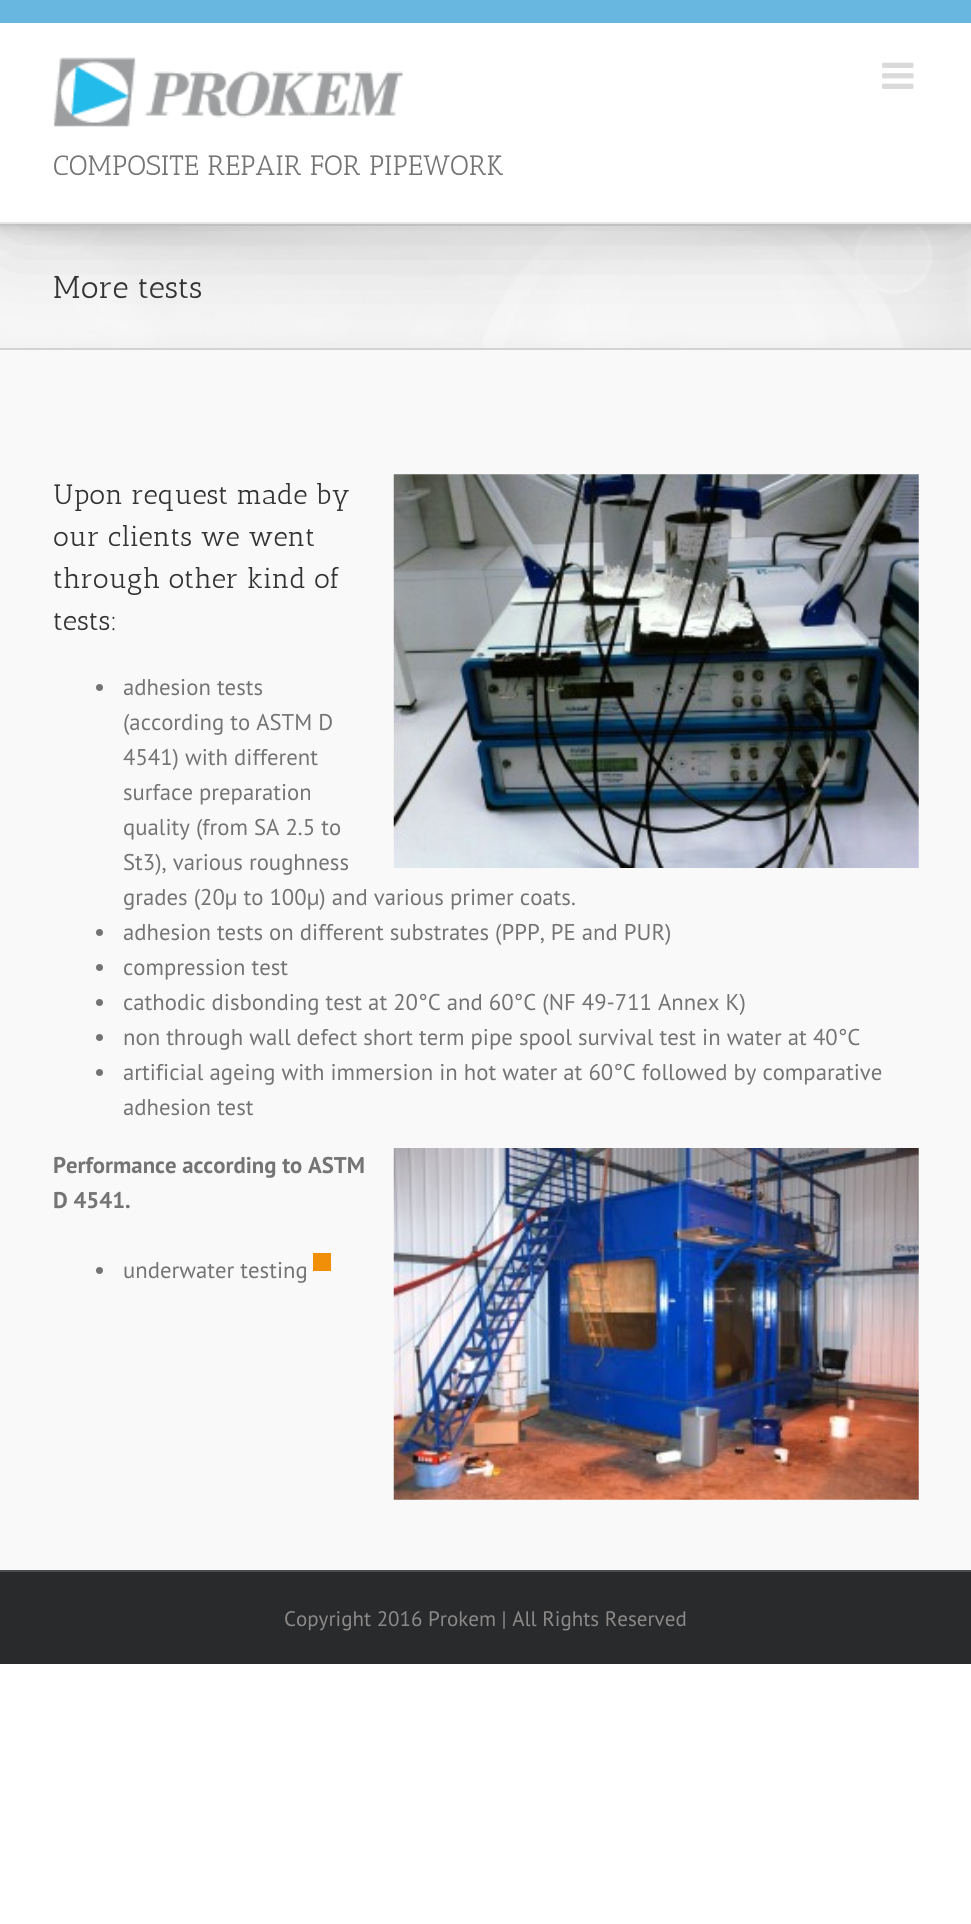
import math
import cairo

surface = cairo.ImageSurface(cairo.FORMAT_RGB24, 971, 1924)
ctx = cairo.Context(surface)
options = cairo.FontOptions()
options.set_hint_metrics(cairo.HINT_METRICS_OFF)
options.set_hint_style(cairo.HINT_STYLE_NONE)
ctx.set_font_options(options)
ctx.set_miter_limit(4)


def round_rect(x, y, w, h, r):
    ctx.new_sub_path()
    for i, (u, v) in enumerate([(x + w - r, y + h - r), (x + r, y + h - r), (x + r, y + r), (x + w - r, y + r)]):
        ctx.arc(u, v, r, i * math.pi / 2, (i + 1) * math.pi / 2)
    ctx.close_path()


def shadow(x, y, w, h, r, blur, alpha):
    ctx.push_group_with_content(cairo.CONTENT_ALPHA)
    ctx.set_operator(cairo.OPERATOR_SOURCE)
    for i in range(15, -16, -2):
        e = blur * i / 6
        if min(w, h) + 2 * e > 0:
            ctx.set_source_rgba(0, 0, 0, alpha * math.erfc((i - 1) / 8.5) / 2)
            round_rect(x - e, y - e, w + 2 * e, h + 2 * e, max(0, min(r + e + blur * .6, min(w, h) / 2 + e)))
            ctx.fill()
    ctx.mask(ctx.pop_group())


def picture(path, x, y, w, h):
    ctx.save()
    ctx.set_source_surface(cairo.ImageSurface.create_from_png(path), x, y)
    ctx.rectangle(x, y, w, h)
    ctx.fill()
    ctx.restore()


ctx.set_source_rgb(1, 1, 1)
ctx.paint()
ctx.set_source_rgb(0.965, 0.965, 0.965)
ctx.rectangle(0, 226, 971, 122)
ctx.fill()
picture("img3.png", 0, 226, 971, 122)
ctx.set_source_rgb(0.824, 0.827, 0.831)
ctx.rectangle(0, 224, 971, 2)
ctx.fill()
ctx.rectangle(0, 348, 971, 2)
ctx.fill()
ctx.set_source_rgb(0.976, 0.976, 0.976)
ctx.rectangle(0, 350, 971, 1220)
ctx.fill()
ctx.set_source_rgb(0, 0, 0)
shadow(4, 21, 964, 217, 0, 44, 0.14)
ctx.set_source_rgb(0.404, 0.718, 0.882)
ctx.rectangle(0, 0, 971, 23)
ctx.fill()
ctx.set_source_rgb(1, 1, 1)
ctx.rectangle(0, 23, 971, 199)
ctx.fill()
ctx.set_source_rgb(0.898, 0.898, 0.898)
ctx.rectangle(0, 222, 971, 2)
ctx.fill()
picture("img1.png", 882, 62, 32, 27)
picture("img2.png", 53, 57, 350, 70)
ctx.select_font_face("Antic Slab")
ctx.set_font_size(28)
ctx.set_source_rgb(0.455, 0.455, 0.455)
ctx.move_to(53, 175)
ctx.show_text("COMPOSITE REPAIR FOR PIPEWORK")
ctx.set_font_size(31.5)
ctx.set_source_rgb(0.2, 0.2, 0.2)
ctx.move_to(53, 298)
ctx.show_text("More tests")
ctx.set_font_size(28)
ctx.move_to(53, 504)
ctx.show_text("Upon request made by")
picture("img4.png", 393, 474, 526, 394)
ctx.move_to(53, 546)
ctx.show_text("our clients we went")
ctx.move_to(53, 588)
ctx.show_text("through other kind of")
ctx.move_to(53, 630)
ctx.show_text("tests:")
ctx.set_source_rgb(0.455, 0.455, 0.455)
ctx.new_path()
ctx.arc(99.5, 687.5, 3.5, 0, 2 * math.pi)
ctx.fill()
ctx.select_font_face("PT Sans")
ctx.set_font_size(22.75)
ctx.move_to(123, 695)
ctx.show_text("adhesion tests")
ctx.move_to(123, 730)
ctx.show_text("(according to ASTM D")
ctx.move_to(123, 765)
ctx.show_text("4541) with different")
ctx.move_to(123, 800)
ctx.show_text("surface preparation")
ctx.move_to(123, 835)
ctx.show_text("quality (from SA 2.5 to")
ctx.move_to(123, 870)
ctx.show_text("St3), various roughness")
ctx.move_to(123, 905)
ctx.show_text("grades (20µ to 100µ) and various primer coats.")
ctx.new_path()
ctx.arc(99.5, 932.5, 3.5, 0, 2 * math.pi)
ctx.fill()
ctx.move_to(123, 940)
ctx.show_text("adhesion tests on different substrates (PPP, PE and PUR)")
ctx.new_path()
ctx.arc(99.5, 967.5, 3.5, 0, 2 * math.pi)
ctx.fill()
ctx.move_to(123, 975)
ctx.show_text("compression test")
ctx.new_path()
ctx.arc(99.5, 1002.5, 3.5, 0, 2 * math.pi)
ctx.fill()
ctx.move_to(123, 1010)
ctx.show_text("cathodic disbonding test at 20°C and 60°C (NF 49-711 Annex K)")
ctx.new_path()
ctx.arc(99.5, 1037.5, 3.5, 0, 2 * math.pi)
ctx.fill()
ctx.move_to(123, 1045)
ctx.show_text("non through wall defect short term pipe spool survival test in water at 40°C")
ctx.new_path()
ctx.arc(99.5, 1072.5, 3.5, 0, 2 * math.pi)
ctx.fill()
ctx.move_to(123, 1080)
ctx.show_text("artificial ageing with immersion in hot water at 60°C followed by comparative")
ctx.move_to(123, 1115)
ctx.show_text("adhesion test")
ctx.select_font_face("PT Sans", cairo.FONT_SLANT_NORMAL, cairo.FONT_WEIGHT_BOLD)
ctx.move_to(53, 1173)
ctx.show_text("Performance according to ASTM")
picture("img5.png", 393, 1148, 526, 352)
ctx.move_to(53, 1208)
ctx.show_text("D 4541.")
ctx.new_path()
ctx.arc(99.5, 1270.5, 3.5, 0, 2 * math.pi)
ctx.fill()
ctx.select_font_face("PT Sans")
ctx.move_to(123, 1278)
ctx.show_text("underwater testing")
ctx.set_source_rgb(0.945, 0.561, 0.039)
ctx.rectangle(313, 1253, 18, 18)
ctx.fill()
ctx.set_source_rgb(0.157, 0.165, 0.169)
ctx.rectangle(0, 1572, 971, 92)
ctx.fill()
ctx.set_source_rgb(0.294, 0.298, 0.302)
ctx.rectangle(0, 1570, 971, 2)
ctx.fill()
ctx.set_font_size(21)
ctx.set_source_rgb(0.549, 0.537, 0.537)
ctx.move_to(284, 1626)
ctx.show_text("Copyright 2016 Prokem | All Rights Reserved")
surface.write_to_png("page.png")
